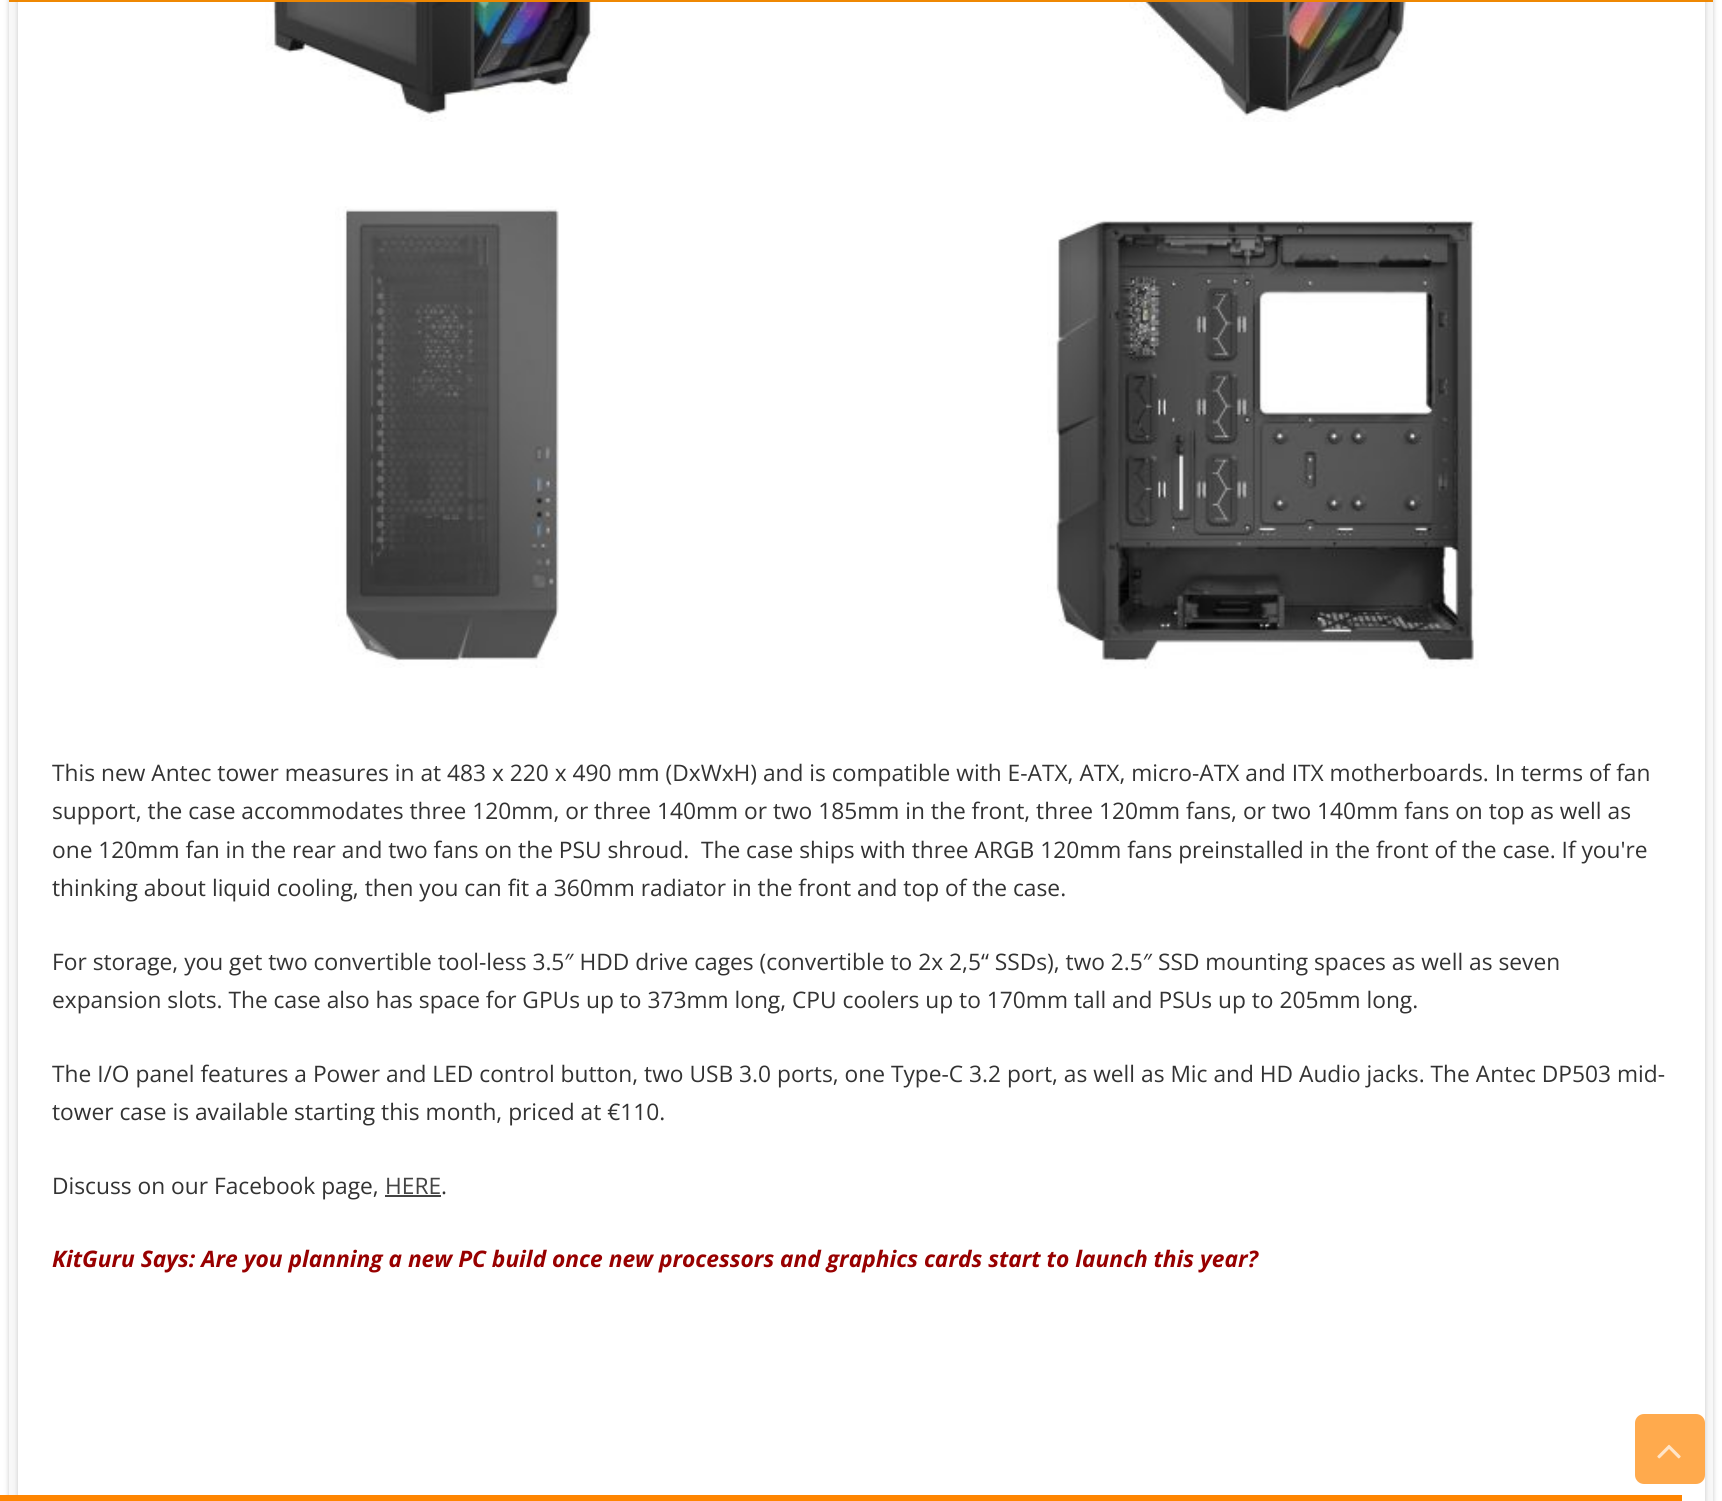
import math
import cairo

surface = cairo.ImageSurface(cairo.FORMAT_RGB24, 1722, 1501)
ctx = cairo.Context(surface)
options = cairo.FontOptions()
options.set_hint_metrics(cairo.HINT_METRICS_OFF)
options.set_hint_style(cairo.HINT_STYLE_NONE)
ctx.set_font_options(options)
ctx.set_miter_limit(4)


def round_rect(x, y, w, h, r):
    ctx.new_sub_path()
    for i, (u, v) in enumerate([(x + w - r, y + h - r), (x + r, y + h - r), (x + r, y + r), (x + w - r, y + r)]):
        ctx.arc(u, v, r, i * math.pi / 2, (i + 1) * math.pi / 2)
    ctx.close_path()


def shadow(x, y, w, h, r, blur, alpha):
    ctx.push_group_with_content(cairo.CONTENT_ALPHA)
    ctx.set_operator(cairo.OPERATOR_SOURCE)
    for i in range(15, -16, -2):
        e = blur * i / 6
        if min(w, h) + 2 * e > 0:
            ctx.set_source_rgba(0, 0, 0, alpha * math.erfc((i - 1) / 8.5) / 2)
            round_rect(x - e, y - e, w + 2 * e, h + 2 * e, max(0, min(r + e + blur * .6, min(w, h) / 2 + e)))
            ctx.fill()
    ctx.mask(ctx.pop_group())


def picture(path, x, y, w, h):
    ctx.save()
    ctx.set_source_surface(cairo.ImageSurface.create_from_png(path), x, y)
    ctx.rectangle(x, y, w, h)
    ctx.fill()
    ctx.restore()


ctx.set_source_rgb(1, 1, 1)
ctx.paint()
ctx.set_source_rgb(0.792, 0.792, 0.792)
shadow(9, -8, 1704, 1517, 0, 2.5, 1)
ctx.set_source_rgb(0.969, 0.969, 0.969)
ctx.rectangle(9, 0, 1704, 1501)
ctx.fill()
ctx.set_source_rgb(0.792, 0.792, 0.792)
shadow(18, -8, 1687, 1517, 0, 2.5, 1)
ctx.set_source_rgb(1, 1, 1)
ctx.rectangle(18, 0, 1687, 1501)
ctx.fill()
picture("img1.png", 265, 0, 333, 122)
picture("img2.png", 1129, 0, 279, 122)
ctx.set_source_rgba(0.176, 0.176, 0.176, 0.95)
ctx.rectangle(9, 0, 1704, 2)
ctx.fill()
ctx.set_source_rgba(0.973, 0.549, 0, 0.95)
ctx.rectangle(9, 0, 1704, 2)
ctx.fill()
picture("img3.png", 335, 206, 224, 462)
picture("img4.png", 1047, 220, 432, 449)
ctx.select_font_face("Open Sans")
ctx.set_font_size(22.75)
ctx.set_source_rgb(0.2, 0.2, 0.2)
ctx.move_to(52, 781)
ctx.show_text("This new Antec tower measures in at 483 x 220 x 490 mm (DxWxH) and is compatible with E-ATX, ATX, micro-ATX and ITX motherboards. In terms of fan")
ctx.move_to(52, 819)
ctx.show_text("support, the case accommodates three 120mm, or three 140mm or two 185mm in the front, three 120mm fans, or two 140mm fans on top as well as")
ctx.move_to(52, 858)
ctx.show_text("one 120mm fan in the rear and two fans on the PSU shroud.  The case ships with three ARGB 120mm fans preinstalled in the front of the case. If you're")
ctx.move_to(52, 896)
ctx.show_text("thinking about liquid cooling, then you can fit a 360mm radiator in the front and top of the case.")
ctx.move_to(52, 970)
ctx.show_text("For storage, you get two convertible tool-less 3.5″ HDD drive cages (convertible to 2x 2,5“ SSDs), two 2.5″ SSD mounting spaces as well as seven")
ctx.move_to(52, 1008)
ctx.show_text("expansion slots. The case also has space for GPUs up to 373mm long, CPU coolers up to 170mm tall and PSUs up to 205mm long.")
ctx.move_to(52, 1082)
ctx.show_text("The I/O panel features a Power and LED control button, two USB 3.0 ports, one Type-C 3.2 port, as well as Mic and HD Audio jacks. The Antec DP503 mid-")
ctx.move_to(52, 1120)
ctx.show_text("tower case is available starting this month, priced at €110.")
ctx.move_to(52, 1194)
ctx.show_text("Discuss on our Facebook page,")
ctx.set_source_rgb(0.267, 0.267, 0.267)
ctx.move_to(385, 1194)
ctx.show_text("HERE")
ctx.rectangle(385, 1195, 56, 2)
ctx.fill()
ctx.set_source_rgb(0.2, 0.2, 0.2)
ctx.move_to(441, 1194)
ctx.show_text(".")
ctx.select_font_face("Open Sans", cairo.FONT_SLANT_ITALIC, cairo.FONT_WEIGHT_BOLD)
ctx.set_source_rgb(0.596, 0, 0)
ctx.move_to(52, 1267)
ctx.show_text("KitGuru Says: Are you planning a new PC build once new processors and graphics cards start to launch this year?")
ctx.set_source_rgb(1, 0.667, 0.302)
round_rect(1635, 1414, 70, 70, 9)
ctx.fill()
picture("img5.png", 1657, 1444, 24, 15)
ctx.set_source_rgb(1, 0.522, 0)
ctx.rectangle(0, 1495, 1682, 6)
ctx.fill()
surface.write_to_png("page.png")
